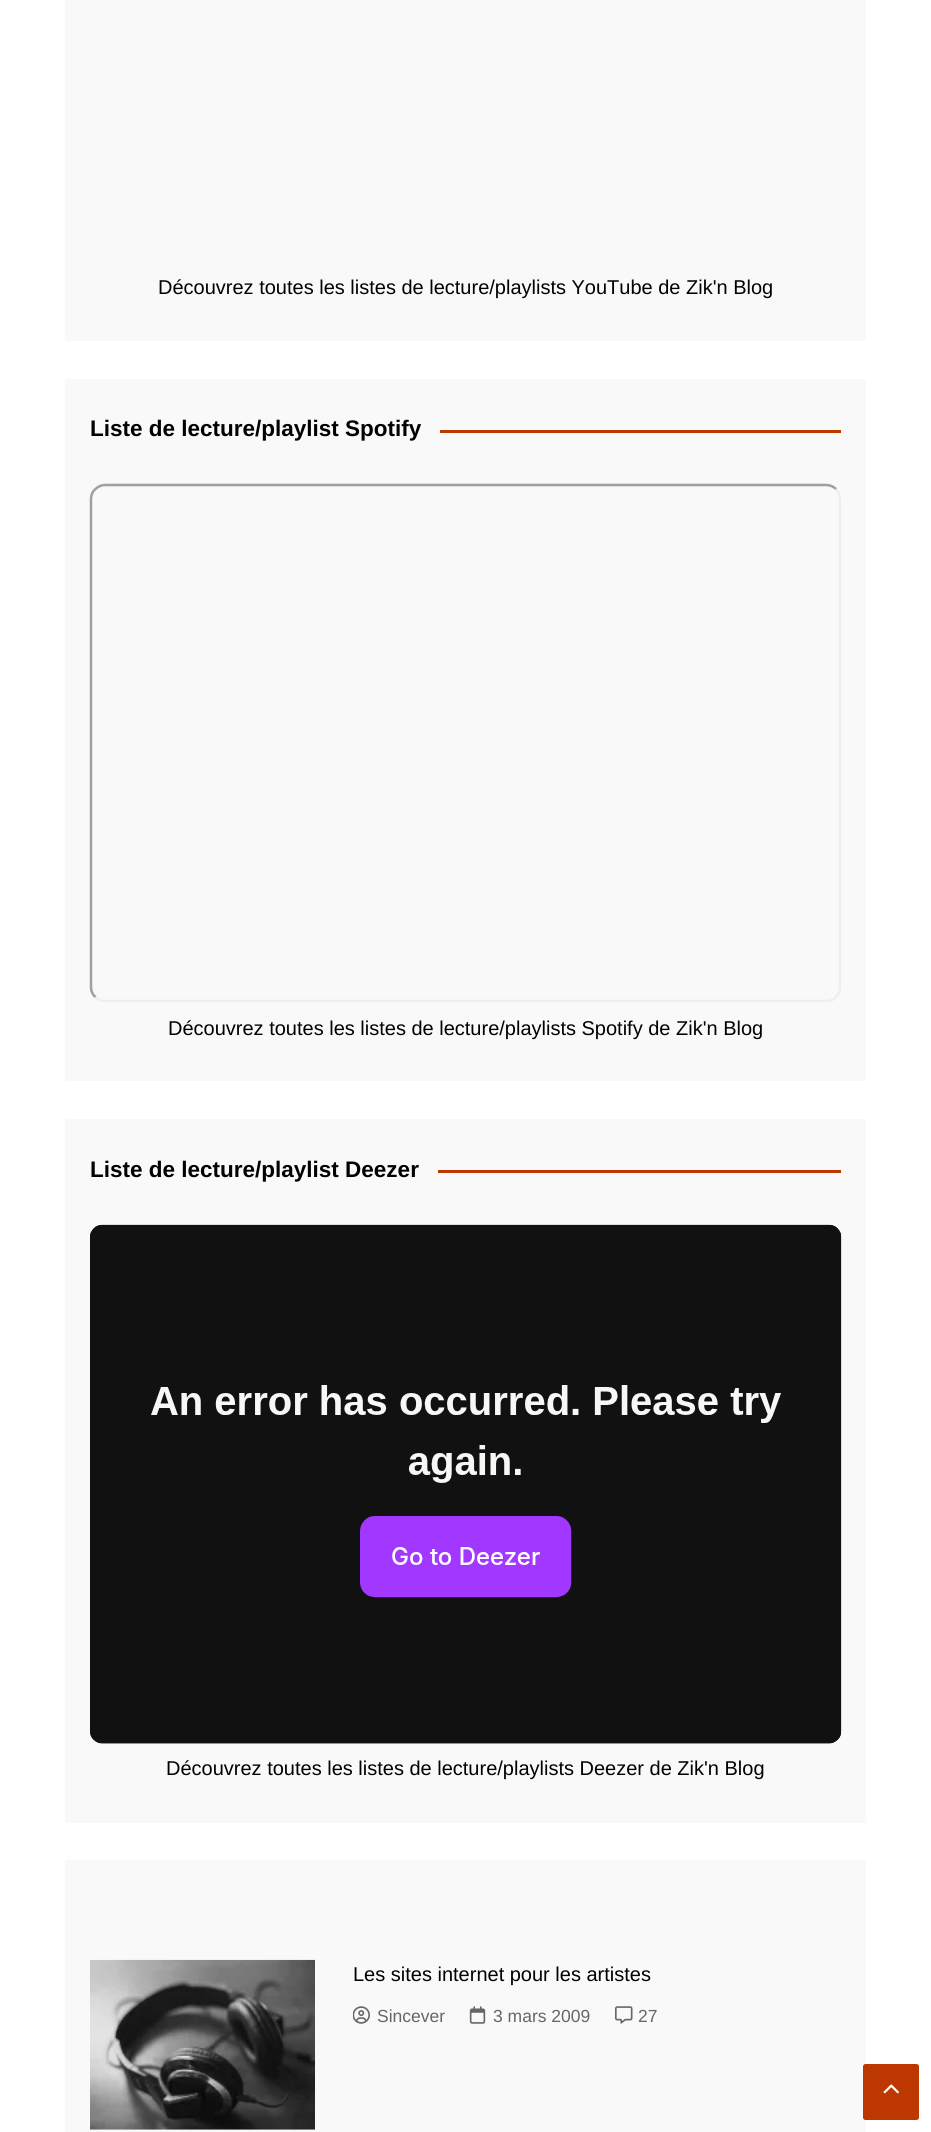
import math
import cairo

surface = cairo.ImageSurface(cairo.FORMAT_RGB24, 931, 2132)
ctx = cairo.Context(surface)
options = cairo.FontOptions()
options.set_hint_metrics(cairo.HINT_METRICS_OFF)
options.set_hint_style(cairo.HINT_STYLE_NONE)
ctx.set_font_options(options)
ctx.set_miter_limit(4)


def round_rect(x, y, w, h, r):
    ctx.new_sub_path()
    for i, (u, v) in enumerate([(x + w - r, y + h - r), (x + r, y + h - r), (x + r, y + r), (x + w - r, y + r)]):
        ctx.arc(u, v, r, i * math.pi / 2, (i + 1) * math.pi / 2)
    ctx.close_path()


def picture(path, x, y, w, h):
    ctx.save()
    ctx.set_source_surface(cairo.ImageSurface.create_from_png(path), x, y)
    ctx.rectangle(x, y, w, h)
    ctx.fill()
    ctx.restore()


ctx.set_source_rgb(1, 1, 1)
ctx.paint()
ctx.set_source_rgb(0.973, 0.973, 0.973)
ctx.rectangle(65, 0, 801, 341)
ctx.fill()
ctx.select_font_face("Liberation Sans")
ctx.set_font_size(20)
ctx.set_source_rgb(0.004, 0.004, 0.004)
ctx.move_to(158, 294)
ctx.show_text("Découvrez toutes les listes de lecture/playlists YouTube de Zik'n Blog")
ctx.set_source_rgb(0.973, 0.973, 0.973)
ctx.rectangle(65, 379, 801, 702)
ctx.fill()
ctx.select_font_face("Liberation Sans", cairo.FONT_SLANT_NORMAL, cairo.FONT_WEIGHT_BOLD)
ctx.set_font_size(22.5)
ctx.set_source_rgb(0.004, 0.004, 0.004)
ctx.move_to(90, 436)
ctx.show_text("Liste de lecture/playlist Spotify")
ctx.set_source_rgb(0.737, 0.22, 0)
ctx.rectangle(440, 430, 401, 3)
ctx.fill()
ctx.new_path()
ctx.move_to(836, 489)
ctx.curve_to(838.5, 491.5, 840, 495, 840, 499)
ctx.line_to(840, 987.5)
ctx.curve_to(840, 991, 838.5, 994.5, 836, 997)
ctx.curve_to(833.5, 1000, 830, 1001, 826, 1001)
ctx.line_to(105, 1001)
ctx.curve_to(101.5, 1001, 98, 1000, 95.5, 997)
ctx.set_source_rgb(0.933, 0.933, 0.933)
ctx.set_line_width(2.5)
ctx.stroke()
ctx.new_path()
ctx.move_to(95.5, 997)
ctx.curve_to(92.5, 994.5, 91, 991, 91, 987.5)
ctx.line_to(91, 499)
ctx.curve_to(91, 495, 92.5, 491.5, 95.5, 489)
ctx.curve_to(98, 486.5, 101.5, 485, 105, 485)
ctx.line_to(826, 485)
ctx.curve_to(830, 485, 833.5, 486.5, 836, 489)
ctx.set_source_rgb(0.624, 0.624, 0.624)
ctx.stroke()
ctx.select_font_face("Liberation Sans")
ctx.set_font_size(20)
ctx.set_source_rgb(0.004, 0.004, 0.004)
ctx.move_to(168, 1035)
ctx.show_text("Découvrez toutes les listes de lecture/playlists Spotify de Zik'n Blog")
ctx.set_source_rgb(0.973, 0.973, 0.973)
ctx.rectangle(65, 1119, 801, 704)
ctx.fill()
ctx.select_font_face("Liberation Sans", cairo.FONT_SLANT_NORMAL, cairo.FONT_WEIGHT_BOLD)
ctx.set_font_size(22.5)
ctx.set_source_rgb(0.004, 0.004, 0.004)
ctx.move_to(90, 1177)
ctx.show_text("Liste de lecture/playlist Deezer")
ctx.set_source_rgb(0.737, 0.22, 0)
ctx.rectangle(438, 1170, 403, 3)
ctx.fill()
picture("img1.png", 90, 1224, 752, 520)
ctx.select_font_face("Liberation Sans")
ctx.set_font_size(20)
ctx.set_source_rgb(0.004, 0.004, 0.004)
ctx.move_to(166, 1775)
ctx.show_text("Découvrez toutes les listes de lecture/playlists Deezer de Zik'n Blog")
ctx.set_source_rgb(0.973, 0.973, 0.973)
ctx.rectangle(65, 1860, 801, 272)
ctx.fill()
picture("img2.png", 90, 1959, 225, 171)
ctx.set_source_rgb(0.004, 0.004, 0.004)
ctx.move_to(353, 1981)
ctx.show_text("Les sites internet pour les artistes")
picture("img3.png", 353, 2006, 17, 18)
ctx.set_font_size(17.5)
ctx.set_source_rgb(0.4, 0.4, 0.4)
ctx.move_to(377, 2022)
ctx.show_text("Sincever")
picture("img4.png", 469, 2006, 17, 18)
ctx.move_to(493, 2022)
ctx.show_text("3 mars 2009")
picture("img5.png", 615, 2006, 18, 18)
ctx.move_to(638, 2022)
ctx.show_text("27")
ctx.set_source_rgb(0.737, 0.22, 0)
round_rect(863, 2064, 56, 56, 2.5)
ctx.fill()
picture("img6.png", 883, 2084, 16, 10)
surface.write_to_png("page.png")
